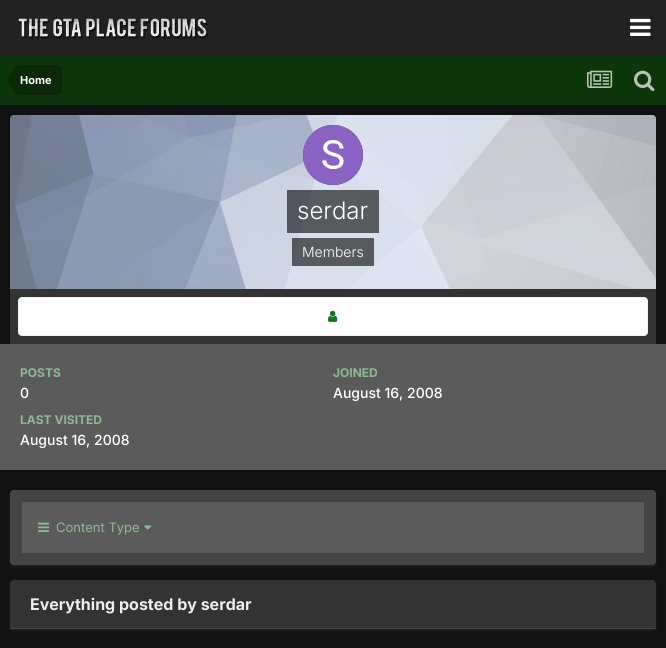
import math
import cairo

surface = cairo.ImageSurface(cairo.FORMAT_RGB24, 666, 648)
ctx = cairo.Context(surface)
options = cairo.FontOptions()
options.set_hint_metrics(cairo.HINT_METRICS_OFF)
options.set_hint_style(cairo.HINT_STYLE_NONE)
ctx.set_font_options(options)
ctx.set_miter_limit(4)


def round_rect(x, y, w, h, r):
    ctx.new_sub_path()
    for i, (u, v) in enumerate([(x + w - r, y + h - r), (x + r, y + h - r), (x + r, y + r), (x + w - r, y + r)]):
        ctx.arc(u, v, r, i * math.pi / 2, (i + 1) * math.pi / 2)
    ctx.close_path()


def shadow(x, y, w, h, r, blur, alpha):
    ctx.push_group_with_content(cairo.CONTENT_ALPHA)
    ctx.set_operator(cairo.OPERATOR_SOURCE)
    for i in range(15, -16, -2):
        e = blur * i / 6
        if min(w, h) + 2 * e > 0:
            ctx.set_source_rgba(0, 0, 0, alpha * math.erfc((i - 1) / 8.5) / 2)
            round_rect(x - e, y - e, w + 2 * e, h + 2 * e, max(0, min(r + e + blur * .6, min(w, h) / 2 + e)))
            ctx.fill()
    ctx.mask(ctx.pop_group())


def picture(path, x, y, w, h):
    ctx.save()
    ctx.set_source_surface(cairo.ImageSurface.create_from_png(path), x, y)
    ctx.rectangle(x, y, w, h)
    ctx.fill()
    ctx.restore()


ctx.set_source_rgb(0.067, 0.067, 0.067)
ctx.paint()
ctx.set_source_rgb(0.133, 0.133, 0.133)
ctx.rectangle(0, 0, 666, 55)
ctx.fill()
picture("img1.png", 18, 18, 190, 21)
picture("img2.png", 630, 18, 21, 18)
ctx.set_source_rgb(0.055, 0.212, 0.051)
ctx.rectangle(0, 55, 666, 50)
ctx.fill()
ctx.set_source_rgb(0.043, 0.161, 0.039)
ctx.new_path()
ctx.move_to(20, 65)
ctx.line_to(57, 65)
ctx.curve_to(60, 65, 62, 67, 62, 70)
ctx.line_to(62, 90)
ctx.curve_to(62, 93, 60, 95, 57, 95)
ctx.line_to(20, 95)
ctx.close_path()
ctx.fill()
ctx.new_path()
ctx.move_to(20, 80)
ctx.line_to(20, 95)
ctx.curve_to(15.5, 95, 13.5, 90.5, 11, 87)
ctx.curve_to(9.5, 85, 7, 83, 7, 80)
ctx.close_path()
ctx.move_to(20, 80)
ctx.line_to(7, 80)
ctx.curve_to(7, 77, 9.5, 75, 11, 73)
ctx.curve_to(13.5, 69.5, 15.5, 65, 20, 65)
ctx.close_path()
ctx.fill()
ctx.select_font_face("Inter", cairo.FONT_SLANT_NORMAL, cairo.FONT_WEIGHT_BOLD)
ctx.set_font_size(11)
ctx.set_source_rgb(1, 1, 1)
ctx.move_to(20, 84)
ctx.show_text("Home")
picture("img3.png", 587, 70, 26, 18)
picture("img4.png", 634, 70, 21, 22)
ctx.set_source_rgb(0.6, 0.725, 1)
ctx.new_path()
ctx.move_to(14, 115)
ctx.line_to(652, 115)
ctx.curve_to(654, 115, 656, 117, 656, 119)
ctx.line_to(656, 289)
ctx.line_to(10, 289)
ctx.line_to(10, 119)
ctx.curve_to(10, 117, 12, 115, 14, 115)
ctx.close_path()
ctx.fill()
picture("img5.png", 10, 115, 646, 174)
ctx.set_source_rgb(0.267, 0.267, 0.267)
ctx.arc(333, 155, 30, 0, 2 * math.pi)
ctx.fill()
picture("img6.png", 303, 125, 60, 60)
ctx.set_source_rgba(0, 0, 0, 0.6)
ctx.rectangle(287, 190, 92, 43)
ctx.fill()
ctx.select_font_face("Inter Light")
ctx.set_font_size(24)
ctx.set_source_rgb(1, 1, 1)
ctx.move_to(297, 219)
ctx.show_text("serdar")
ctx.set_source_rgba(0, 0, 0, 0.6)
ctx.rectangle(292, 238, 82, 28)
ctx.fill()
ctx.set_font_size(14)
ctx.set_source_rgb(1, 1, 1)
ctx.move_to(302, 257)
ctx.show_text("Members")
ctx.set_source_rgb(0.2, 0.2, 0.2)
ctx.rectangle(10, 289, 646, 55)
ctx.fill()
ctx.set_source_rgb(1, 1, 1)
round_rect(18, 297, 630, 39, 4)
ctx.fill()
round_rect(18.5, 297.5, 629, 38, 3.5)
ctx.set_source_rgba(0.055, 0.475, 0.137, 0.07)
ctx.set_line_width(1)
ctx.stroke()
picture("img7.png", 328, 310, 10, 12)
ctx.set_source_rgb(0.357, 0.357, 0.357)
ctx.rectangle(0, 344, 666, 126)
ctx.fill()
ctx.select_font_face("Inter", cairo.FONT_SLANT_NORMAL, cairo.FONT_WEIGHT_BOLD)
ctx.set_font_size(12)
ctx.set_source_rgb(0.553, 0.725, 0.576)
ctx.move_to(20, 377)
ctx.show_text("POSTS")
ctx.select_font_face("Inter Medium")
ctx.set_font_size(14)
ctx.set_source_rgb(1, 1, 1)
ctx.move_to(20, 398)
ctx.show_text("0")
ctx.select_font_face("Inter", cairo.FONT_SLANT_NORMAL, cairo.FONT_WEIGHT_BOLD)
ctx.set_font_size(12)
ctx.set_source_rgb(0.553, 0.725, 0.576)
ctx.move_to(333, 377)
ctx.show_text("JOINED")
ctx.select_font_face("Inter Medium")
ctx.set_font_size(14)
ctx.set_source_rgb(1, 1, 1)
ctx.move_to(333, 398)
ctx.show_text("August 16, 2008")
ctx.select_font_face("Inter", cairo.FONT_SLANT_NORMAL, cairo.FONT_WEIGHT_BOLD)
ctx.set_font_size(12)
ctx.set_source_rgb(0.553, 0.725, 0.576)
ctx.move_to(20, 424)
ctx.show_text("LAST VISITED")
ctx.select_font_face("Inter Medium")
ctx.set_font_size(14)
ctx.set_source_rgb(1, 1, 1)
ctx.move_to(20, 445)
ctx.show_text("August 16, 2008")
ctx.set_source_rgb(0.929, 0.969, 0.937)
shadow(11, 493, 644, 73, 3, 2, 0.1)
ctx.set_source_rgb(0.267, 0.267, 0.267)
round_rect(10, 490, 646, 75, 4)
ctx.fill()
ctx.set_source_rgb(0.357, 0.357, 0.357)
ctx.rectangle(22, 502, 622, 51)
ctx.fill()
picture("img8.png", 38, 522, 12, 10)
ctx.select_font_face("Inter")
ctx.set_font_size(13)
ctx.set_source_rgb(0.553, 0.725, 0.576)
ctx.move_to(56, 532)
ctx.show_text("Content Type")
picture("img9.png", 144, 525, 8, 5)
ctx.set_source_rgb(0.929, 0.969, 0.937)
shadow(11, 583, 644, 47, 3, 2, 0.1)
ctx.set_source_rgb(0.2, 0.2, 0.2)
ctx.new_path()
ctx.move_to(14, 580)
ctx.line_to(652, 580)
ctx.curve_to(654, 580, 656, 582, 656, 584)
ctx.line_to(656, 629)
ctx.line_to(10, 629)
ctx.line_to(10, 584)
ctx.curve_to(10, 582, 12, 580, 14, 580)
ctx.close_path()
ctx.fill()
ctx.set_source_rgb(0.255, 0.278, 0.255)
ctx.rectangle(10, 628, 646, 1)
ctx.fill()
ctx.select_font_face("Inter", cairo.FONT_SLANT_NORMAL, cairo.FONT_WEIGHT_BOLD)
ctx.set_font_size(16)
ctx.set_source_rgb(0.933, 0.933, 0.933)
ctx.move_to(30, 610)
ctx.show_text("Everything posted by serdar")
surface.write_to_png("page.png")
